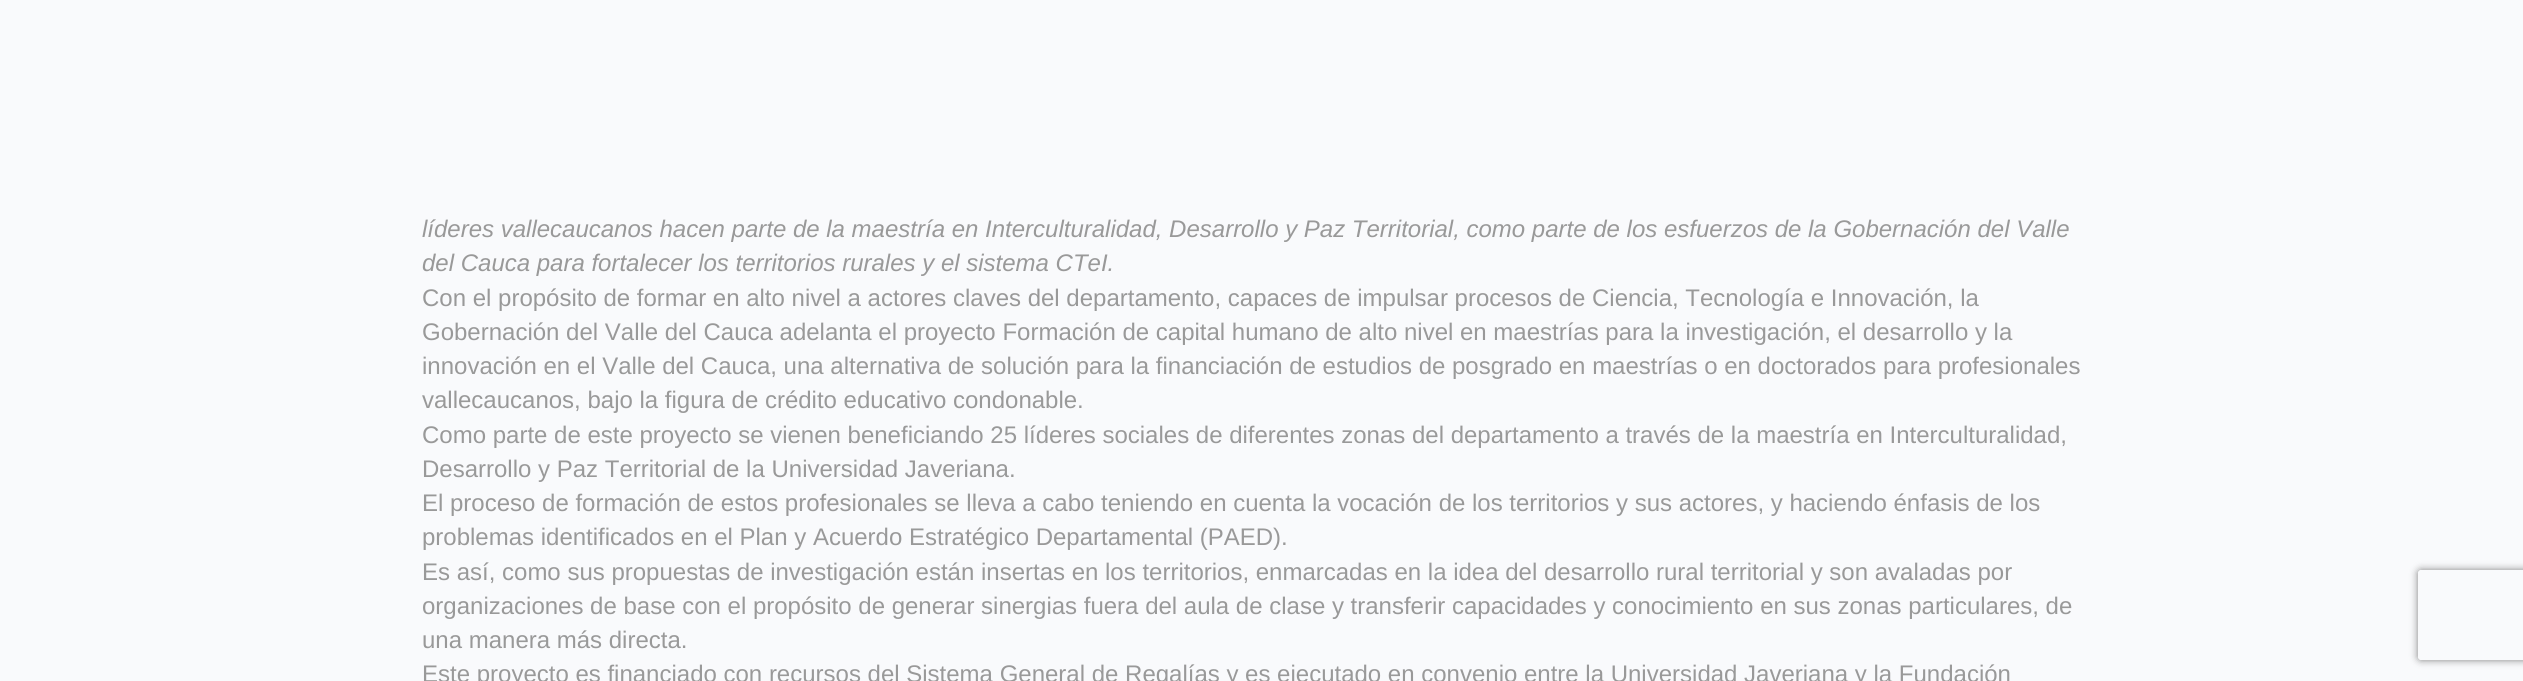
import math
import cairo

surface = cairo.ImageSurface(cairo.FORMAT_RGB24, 2523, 681)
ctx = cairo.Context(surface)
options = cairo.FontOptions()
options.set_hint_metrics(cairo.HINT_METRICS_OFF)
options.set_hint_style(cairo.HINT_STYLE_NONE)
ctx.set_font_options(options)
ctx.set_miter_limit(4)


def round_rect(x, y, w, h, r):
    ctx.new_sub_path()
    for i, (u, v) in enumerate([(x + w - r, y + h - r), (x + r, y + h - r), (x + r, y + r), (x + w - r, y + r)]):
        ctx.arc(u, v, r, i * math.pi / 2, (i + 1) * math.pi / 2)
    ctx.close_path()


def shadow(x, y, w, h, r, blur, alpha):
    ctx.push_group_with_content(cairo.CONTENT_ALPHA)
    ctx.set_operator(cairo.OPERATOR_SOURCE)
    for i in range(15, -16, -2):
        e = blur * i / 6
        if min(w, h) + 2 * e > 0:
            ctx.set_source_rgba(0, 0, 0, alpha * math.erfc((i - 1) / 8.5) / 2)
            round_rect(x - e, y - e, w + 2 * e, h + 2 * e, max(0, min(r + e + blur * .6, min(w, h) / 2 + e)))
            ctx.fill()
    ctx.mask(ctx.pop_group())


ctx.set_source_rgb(0.973, 0.98, 0.988)
ctx.paint()
ctx.select_font_face("Liberation Sans", cairo.FONT_SLANT_ITALIC)
ctx.set_font_size(24)
ctx.set_source_rgb(0.6, 0.6, 0.6)
ctx.move_to(422, 237)
ctx.show_text("líderes vallecaucanos hacen parte de la maestría en Interculturalidad, Desarrollo y Paz Territorial, como parte de los esfuerzos de la Gobernación del Valle")
ctx.move_to(422, 271)
ctx.show_text("del Cauca para fortalecer los territorios rurales y el sistema CTeI.")
ctx.select_font_face("Liberation Sans")
ctx.move_to(422, 306)
ctx.show_text("Con el propósito de formar en alto nivel a actores claves del departamento, capaces de impulsar procesos de Ciencia, Tecnología e Innovación, la")
ctx.move_to(422, 340)
ctx.show_text("Gobernación del Valle del Cauca adelanta el proyecto Formación de capital humano de alto nivel en maestrías para la investigación, el desarrollo y la")
ctx.move_to(422, 374)
ctx.show_text("innovación en el Valle del Cauca, una alternativa de solución para la financiación de estudios de posgrado en maestrías o en doctorados para profesionales")
ctx.move_to(422, 408)
ctx.show_text("vallecaucanos, bajo la figura de crédito educativo condonable.")
ctx.move_to(422, 443)
ctx.show_text("Como parte de este proyecto se vienen beneficiando 25 líderes sociales de diferentes zonas del departamento a través de la maestría en Interculturalidad,")
ctx.move_to(422, 477)
ctx.show_text("Desarrollo y Paz Territorial de la Universidad Javeriana.")
ctx.move_to(422, 511)
ctx.show_text("El proceso de formación de estos profesionales se lleva a cabo teniendo en cuenta la vocación de los territorios y sus actores, y haciendo énfasis de los")
ctx.move_to(422, 545)
ctx.show_text("problemas identificados en el Plan y Acuerdo Estratégico Departamental (PAED).")
ctx.move_to(422, 580)
ctx.show_text("Es así, como sus propuestas de investigación están insertas en los territorios, enmarcadas en la idea del desarrollo rural territorial y son avaladas por")
ctx.move_to(422, 614)
ctx.show_text("organizaciones de base con el propósito de generar sinergias fuera del aula de clase y transferir capacidades y conocimiento en sus zonas particulares, de")
ctx.move_to(422, 648)
ctx.show_text("una manera más directa.")
ctx.move_to(422, 682)
ctx.show_text("Este proyecto es financiado con recursos del Sistema General de Regalías y es ejecutado en convenio entre la Universidad Javeriana y la Fundación")
ctx.save()
ctx.set_fill_rule(cairo.FILL_RULE_EVEN_ODD)
ctx.new_path()
ctx.move_to(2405, 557)
ctx.line_to(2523, 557)
ctx.line_to(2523, 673)
ctx.line_to(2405, 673)
ctx.close_path()
ctx.move_to(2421, 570)
ctx.line_to(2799, 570)
ctx.curve_to(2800.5, 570, 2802, 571.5, 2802, 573)
ctx.line_to(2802, 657)
ctx.curve_to(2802, 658.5, 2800.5, 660, 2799, 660)
ctx.line_to(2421, 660)
ctx.curve_to(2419.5, 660, 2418, 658.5, 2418, 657)
ctx.line_to(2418, 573)
ctx.curve_to(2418, 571.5, 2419.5, 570, 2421, 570)
ctx.close_path()
ctx.clip()
ctx.set_source_rgb(0.502, 0.502, 0.502)
shadow(2418, 570, 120, 90, 3, 4, 1)
ctx.restore()
surface.write_to_png("page.png")
